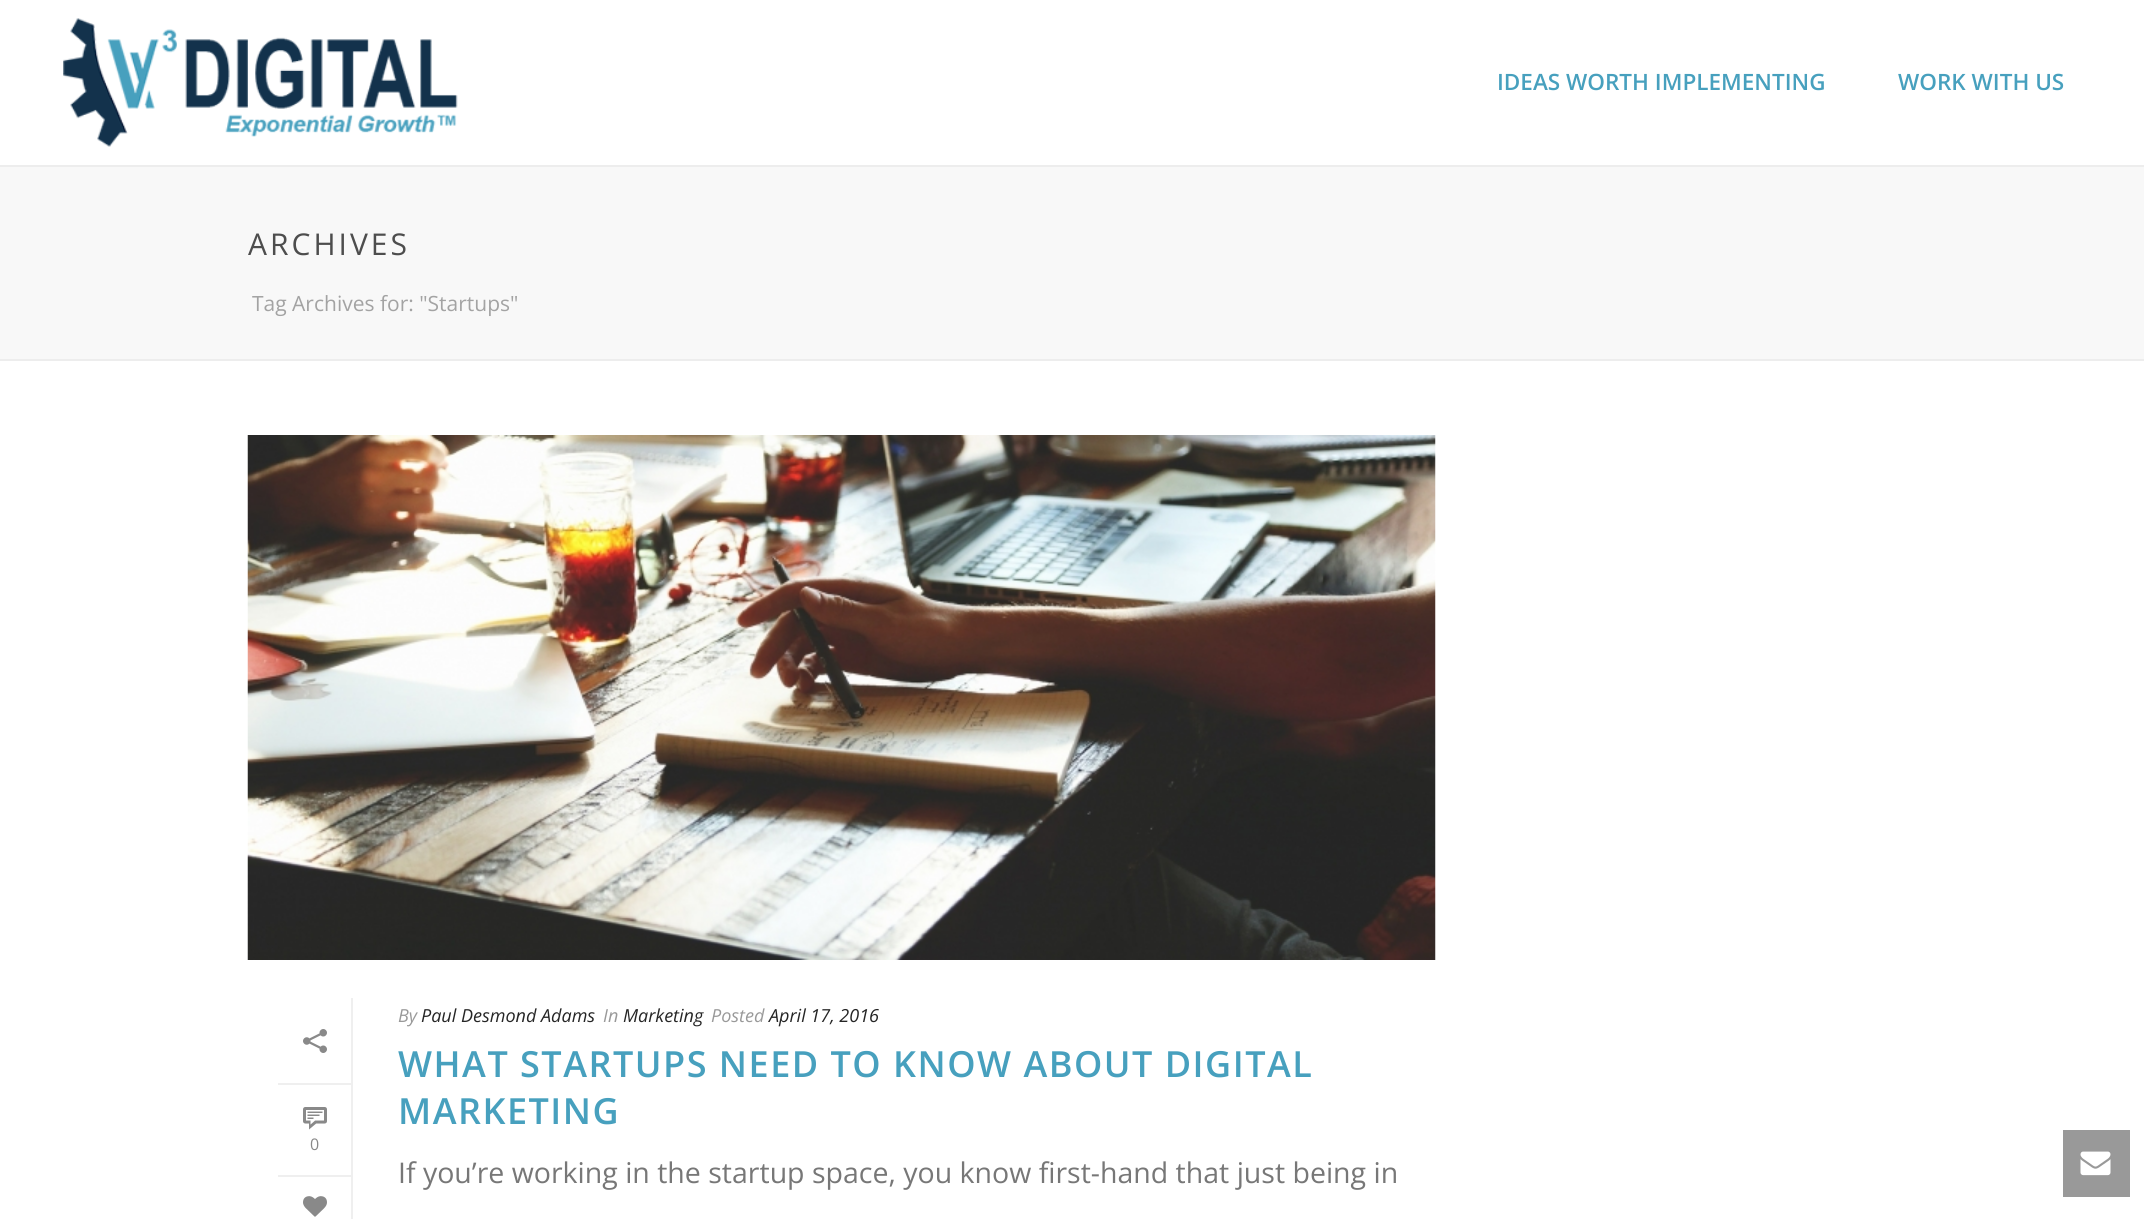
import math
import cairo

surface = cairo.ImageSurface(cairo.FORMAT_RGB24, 2144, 1219)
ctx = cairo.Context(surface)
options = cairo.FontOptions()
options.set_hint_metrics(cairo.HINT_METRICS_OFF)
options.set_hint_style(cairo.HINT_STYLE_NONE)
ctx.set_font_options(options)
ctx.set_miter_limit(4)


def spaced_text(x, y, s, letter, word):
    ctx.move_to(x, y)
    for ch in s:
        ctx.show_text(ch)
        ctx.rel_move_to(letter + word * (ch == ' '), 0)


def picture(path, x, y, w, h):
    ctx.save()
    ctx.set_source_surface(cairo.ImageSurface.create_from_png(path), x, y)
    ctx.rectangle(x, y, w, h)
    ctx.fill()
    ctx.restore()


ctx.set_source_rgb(1, 1, 1)
ctx.paint()
ctx.set_source_rgb(0.969, 0.969, 0.969)
ctx.rectangle(0, 167, 2144, 192)
ctx.fill()
ctx.set_source_rgb(0.929, 0.929, 0.929)
ctx.rectangle(0, 359, 2144, 2)
ctx.fill()
ctx.rectangle(0, 165, 2144, 2)
ctx.fill()
picture("img1.png", 63, 18, 395, 129)
ctx.select_font_face("Open Sans SemiBold")
ctx.set_font_size(22.5)
ctx.set_source_rgb(0.278, 0.627, 0.745)
ctx.move_to(1497, 90)
ctx.show_text("IDEAS WORTH IMPLEMENTING")
ctx.move_to(1898, 90)
ctx.show_text("WORK WITH US")
ctx.select_font_face("Open Sans")
ctx.set_font_size(30)
ctx.set_source_rgb(0.302, 0.302, 0.302)
spaced_text(248, 255, "ARCHIVES", 3, 0)
ctx.set_font_size(21)
ctx.set_source_rgb(0.639, 0.639, 0.639)
ctx.move_to(252, 311)
ctx.show_text("Tag Archives for: \"Startups\"")
picture("img2.png", 247, 435, 1189, 525)
ctx.set_source_rgb(0.937, 0.937, 0.937)
ctx.rectangle(351, 998, 2, 221)
ctx.fill()
ctx.rectangle(278, 1083, 73, 2)
ctx.fill()
picture("img3.png", 303, 1029, 24, 24)
ctx.rectangle(278, 1175, 73, 2)
ctx.fill()
picture("img4.png", 303, 1107, 24, 23)
ctx.set_font_size(16)
ctx.set_source_rgb(0.537, 0.537, 0.537)
ctx.move_to(310, 1150)
ctx.show_text("0")
picture("img5.png", 303, 1196, 24, 21)
ctx.select_font_face("Open Sans", cairo.FONT_SLANT_ITALIC)
ctx.set_font_size(18)
ctx.set_source_rgb(0.6, 0.6, 0.6)
ctx.move_to(398, 1022)
ctx.show_text("By")
ctx.set_source_rgb(0.145, 0.145, 0.145)
ctx.move_to(421, 1022)
ctx.show_text("Paul Desmond Adams")
ctx.set_source_rgb(0.6, 0.6, 0.6)
ctx.move_to(603, 1022)
ctx.show_text("In")
ctx.set_source_rgb(0.145, 0.145, 0.145)
ctx.move_to(623, 1022)
ctx.show_text("Marketing")
ctx.set_source_rgb(0.6, 0.6, 0.6)
ctx.move_to(711, 1022)
ctx.show_text("Posted")
ctx.set_source_rgb(0.145, 0.145, 0.145)
ctx.move_to(769, 1022)
ctx.show_text("April 17, 2016")
ctx.select_font_face("Open Sans SemiBold")
ctx.set_font_size(36)
ctx.set_source_rgb(0.278, 0.627, 0.745)
spaced_text(398, 1077, "WHAT STARTUPS NEED TO KNOW ABOUT DIGITAL", 1.5, 0)
spaced_text(398, 1124, "MARKETING", 1.5, 0)
ctx.select_font_face("Open Sans")
ctx.set_font_size(28.5)
ctx.set_source_rgb(0.467, 0.467, 0.467)
ctx.move_to(398, 1183)
ctx.show_text("If you’re working in the startup space, you know first-hand that just being in")
ctx.set_source_rgb(0.6, 0.6, 0.6)
ctx.rectangle(2063, 1130, 67, 67)
ctx.fill()
picture("img6.png", 2080, 1151, 31, 25)
surface.write_to_png("page.png")
